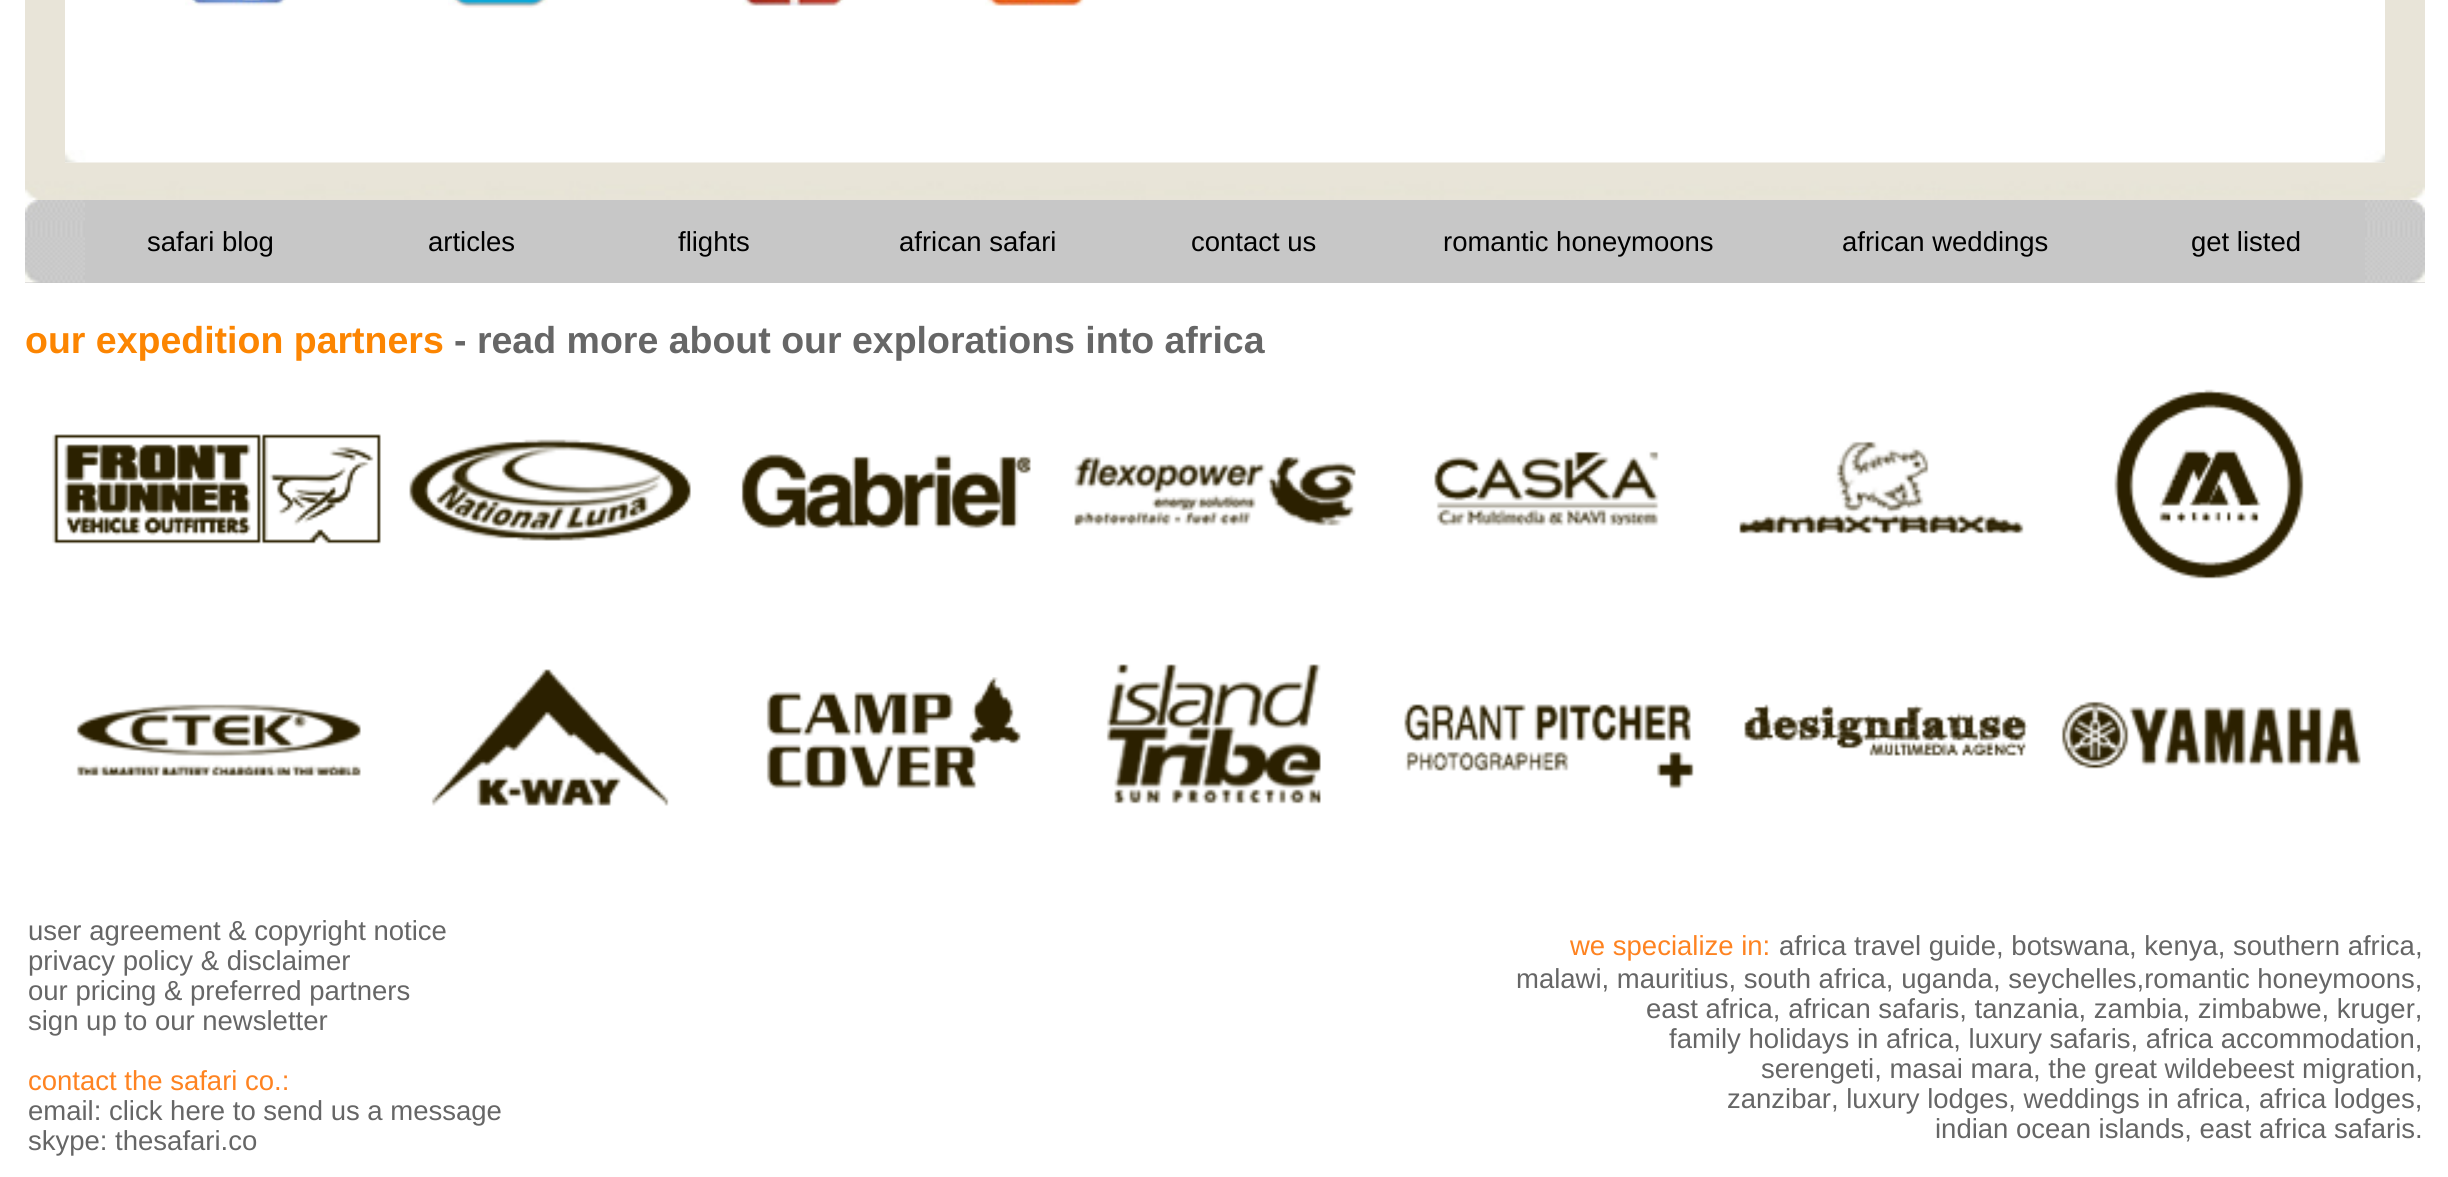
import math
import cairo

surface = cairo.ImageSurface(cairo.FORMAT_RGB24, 2448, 1177)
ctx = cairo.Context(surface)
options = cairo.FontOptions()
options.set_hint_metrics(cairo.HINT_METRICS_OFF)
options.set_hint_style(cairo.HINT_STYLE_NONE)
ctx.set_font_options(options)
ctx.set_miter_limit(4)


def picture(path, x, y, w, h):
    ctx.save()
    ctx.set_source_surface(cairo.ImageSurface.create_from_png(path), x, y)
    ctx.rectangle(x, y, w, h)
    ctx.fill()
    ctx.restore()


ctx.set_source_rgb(1, 1, 1)
ctx.paint()
ctx.set_source_rgb(0.91, 0.894, 0.847)
ctx.rectangle(25, 0, 2400, 163)
ctx.fill()
ctx.set_source_rgb(1, 1, 1)
ctx.rectangle(65, 0, 2320, 163)
ctx.fill()
picture("img1.png", 185, 0, 101, 6)
picture("img2.png", 448, 0, 100, 8)
picture("img3.png", 742, 0, 102, 6)
picture("img4.png", 985, 0, 99, 6)
picture("img5.png", 65, 150, 2320, 13)
picture("img6.png", 25, 162, 2400, 38)
ctx.set_source_rgb(0.78, 0.78, 0.78)
ctx.rectangle(25, 200, 2400, 83)
ctx.fill()
picture("img7.png", 25, 200, 60, 83)
ctx.select_font_face("Liberation Sans")
ctx.set_font_size(27.5)
ctx.set_source_rgb(0, 0, 0)
ctx.move_to(147, 251)
ctx.show_text("safari blog")
ctx.move_to(428, 251)
ctx.show_text("articles")
ctx.move_to(678, 251)
ctx.show_text("flights")
ctx.move_to(899, 251)
ctx.show_text("african safari")
ctx.move_to(1191, 251)
ctx.show_text("contact us")
ctx.move_to(1443, 251)
ctx.show_text("romantic honeymoons")
ctx.move_to(1842, 251)
ctx.show_text("african weddings")
ctx.move_to(2191, 251)
ctx.show_text("get listed")
picture("img8.png", 2365, 200, 60, 83)
ctx.select_font_face("Liberation Sans", cairo.FONT_SLANT_NORMAL, cairo.FONT_WEIGHT_BOLD)
ctx.set_font_size(37.5)
ctx.set_source_rgb(0.988, 0.522, 0.004)
ctx.move_to(25, 353)
ctx.show_text("our expedition partners")
ctx.set_source_rgb(0.4, 0.4, 0.4)
ctx.move_to(454, 353)
ctx.show_text("- read more about our explorations into africa")
picture("img9.png", 52, 434, 329, 110)
picture("img10.png", 409, 439, 282, 102)
picture("img11.png", 741, 454, 290, 75)
picture("img12.png", 1074, 456, 282, 70)
picture("img13.png", 1434, 451, 225, 75)
picture("img14.png", 1739, 441, 285, 93)
picture("img15.png", 2114, 389, 190, 190)
picture("img16.png", 76, 704, 285, 72)
picture("img17.png", 431, 669, 238, 137)
picture("img18.png", 766, 677, 255, 112)
picture("img19.png", 1106, 664, 215, 140)
picture("img20.png", 1404, 704, 290, 85)
picture("img21.png", 1744, 704, 284, 52)
picture("img22.png", 2061, 701, 300, 68)
ctx.select_font_face("Liberation Sans")
ctx.set_font_size(27.5)
ctx.move_to(28, 940)
ctx.show_text("user agreement & copyright notice")
ctx.move_to(28, 970)
ctx.show_text("privacy policy & disclaimer")
ctx.move_to(28, 1000)
ctx.show_text("our pricing & preferred partners")
ctx.move_to(28, 1030)
ctx.show_text("sign up to our newsletter")
ctx.set_source_rgb(0.996, 0.514, 0.129)
ctx.move_to(28, 1090)
ctx.show_text("contact the safari co.:")
ctx.set_source_rgb(0.4, 0.4, 0.4)
ctx.move_to(28, 1120)
ctx.show_text("email: click here to send us a message")
ctx.move_to(28, 1150)
ctx.show_text("skype: thesafari.co")
ctx.set_source_rgb(0.996, 0.514, 0.129)
ctx.move_to(1570, 955)
ctx.show_text("we specialize in:")
ctx.set_source_rgb(0.4, 0.4, 0.4)
ctx.move_to(1779, 955)
ctx.show_text("africa travel guide, botswana, kenya, southern africa,")
ctx.move_to(1516, 988)
ctx.show_text("malawi, mauritius, south africa, uganda, seychelles,romantic honeymoons,")
ctx.move_to(1646, 1018)
ctx.show_text("east africa, african safaris, tanzania, zambia, zimbabwe, kruger,")
ctx.move_to(1669, 1048)
ctx.show_text("family holidays in africa, luxury safaris, africa accommodation,")
ctx.move_to(1761, 1078)
ctx.show_text("serengeti, masai mara, the great wildebeest migration,")
ctx.move_to(1727, 1108)
ctx.show_text("zanzibar, luxury lodges, weddings in africa, africa lodges,")
ctx.move_to(1935, 1138)
ctx.show_text("indian ocean islands, east africa safaris.")
surface.write_to_png("page.png")
